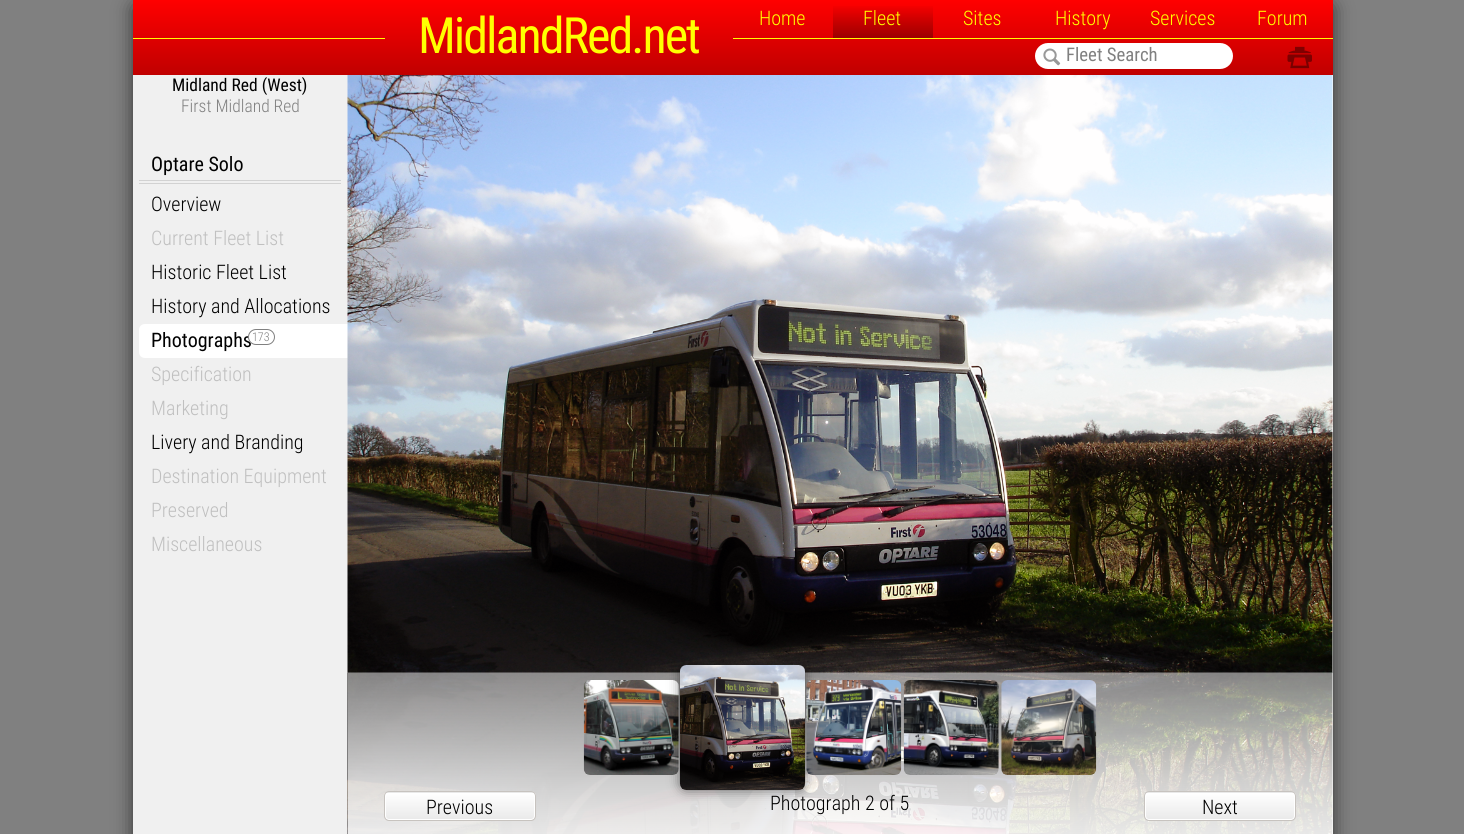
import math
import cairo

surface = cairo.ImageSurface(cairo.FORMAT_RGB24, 1464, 834)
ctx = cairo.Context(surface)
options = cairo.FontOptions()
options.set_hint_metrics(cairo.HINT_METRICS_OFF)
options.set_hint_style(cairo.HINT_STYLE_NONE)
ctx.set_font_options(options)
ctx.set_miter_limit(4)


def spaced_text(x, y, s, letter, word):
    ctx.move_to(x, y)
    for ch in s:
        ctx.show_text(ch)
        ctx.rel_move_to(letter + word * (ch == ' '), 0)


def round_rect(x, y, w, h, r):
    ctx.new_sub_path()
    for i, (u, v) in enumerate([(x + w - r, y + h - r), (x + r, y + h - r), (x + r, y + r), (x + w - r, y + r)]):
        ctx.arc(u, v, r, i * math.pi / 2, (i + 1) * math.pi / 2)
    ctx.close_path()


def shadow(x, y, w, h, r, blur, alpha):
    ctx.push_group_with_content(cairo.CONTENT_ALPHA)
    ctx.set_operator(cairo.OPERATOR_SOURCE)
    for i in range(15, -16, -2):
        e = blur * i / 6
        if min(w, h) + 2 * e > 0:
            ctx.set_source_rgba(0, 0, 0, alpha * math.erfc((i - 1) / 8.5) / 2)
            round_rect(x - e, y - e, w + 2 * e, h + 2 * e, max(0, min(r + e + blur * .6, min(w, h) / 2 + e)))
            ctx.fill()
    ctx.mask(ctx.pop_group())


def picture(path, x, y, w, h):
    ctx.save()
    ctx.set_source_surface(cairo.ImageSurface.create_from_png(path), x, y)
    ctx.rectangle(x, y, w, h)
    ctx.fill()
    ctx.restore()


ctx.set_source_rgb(0.502, 0.502, 0.502)
ctx.paint()
ctx.set_source_rgb(0.2, 0.2, 0.2)
shadow(133, 3, 1200, 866, 6, 9.5, 1)
ctx.set_source_rgb(0.941, 0.941, 0.941)
ctx.rectangle(133, 75, 215, 759)
ctx.fill()
gradient = cairo.LinearGradient(733, 0, 733, 75)
gradient.add_color_stop_rgba(0, 1, 0, 0, 1)
gradient.add_color_stop_rgba(1, 0.753, 0, 0, 1)
ctx.set_source(gradient)
ctx.rectangle(133, 0, 1200, 75)
ctx.fill()
ctx.set_source_rgb(1, 1, 0)
ctx.rectangle(133, 38, 252, 1)
ctx.fill()
ctx.select_font_face("Roboto Condensed")
ctx.set_font_size(50)
spaced_text(418, 53, "MidlandRed.net", -2, 0)
ctx.rectangle(733, 38, 600, 1)
ctx.fill()
ctx.select_font_face("Roboto Condensed Light")
ctx.set_font_size(20)
ctx.move_to(759, 25)
ctx.show_text("Home")
gradient = cairo.LinearGradient(883, 0, 883, 38)
gradient.add_color_stop_rgba(0.1, 0, 0, 0, 0)
gradient.add_color_stop_rgba(1, 0, 0, 0, 0.3)
ctx.set_source(gradient)
ctx.rectangle(833, 6, 100, 32)
ctx.fill()
ctx.set_source_rgb(1, 1, 0)
ctx.move_to(863, 25)
ctx.show_text("Fleet")
ctx.move_to(963, 25)
ctx.show_text("Sites")
ctx.move_to(1055, 25)
ctx.show_text("History")
ctx.move_to(1150, 25)
ctx.show_text("Services")
ctx.move_to(1257, 25)
ctx.show_text("Forum")
ctx.set_source_rgb(1, 1, 1)
round_rect(1035, 43, 198, 26, 13)
ctx.fill()
picture("img1.png", 1043, 48, 18, 18)
ctx.select_font_face("Roboto Condensed")
ctx.set_font_size(18.75)
ctx.set_source_rgb(0.502, 0.502, 0.502)
ctx.move_to(1066, 61)
ctx.show_text("Fleet Search")
picture("img2.png", 1287, 46, 25, 23)
ctx.set_font_size(17.5)
ctx.set_source_rgb(0, 0, 0)
ctx.move_to(172, 91)
ctx.show_text("Midland Red (West)")
ctx.select_font_face("Roboto Condensed Light")
ctx.set_source_rgb(0.502, 0.502, 0.502)
ctx.move_to(181, 112)
ctx.show_text("First Midland Red")
ctx.set_source_rgb(0.824, 0.824, 0.824)
ctx.rectangle(139, 180, 202, 1)
ctx.fill()
ctx.rectangle(139, 183, 202, 1)
ctx.fill()
ctx.select_font_face("Roboto Condensed")
ctx.set_font_size(20)
ctx.set_source_rgb(0, 0, 0)
ctx.move_to(151, 171)
ctx.show_text("Optare Solo")
ctx.select_font_face("Roboto Condensed Light")
ctx.move_to(151, 211)
ctx.show_text("Overview")
ctx.set_source_rgb(0.753, 0.753, 0.753)
ctx.move_to(151, 245)
ctx.show_text("Current Fleet List")
ctx.set_source_rgb(0, 0, 0)
ctx.move_to(151, 279)
ctx.show_text("Historic Fleet List")
ctx.move_to(151, 313)
ctx.show_text("History and Allocations")
ctx.set_source_rgb(1, 1, 1)
ctx.new_path()
ctx.move_to(145, 324)
ctx.line_to(348, 324)
ctx.line_to(348, 358)
ctx.line_to(145, 358)
ctx.curve_to(141.5, 358, 139, 355.5, 139, 352)
ctx.line_to(139, 330)
ctx.curve_to(139, 326.5, 141.5, 324, 145, 324)
ctx.close_path()
ctx.fill()
ctx.select_font_face("Roboto Condensed")
ctx.set_source_rgb(0, 0, 0)
ctx.move_to(151, 347)
ctx.show_text("Photographs")
ctx.set_source_rgb(1, 1, 1)
round_rect(248.5, 329.5, 26, 15, 7.5)
ctx.fill_preserve()
ctx.set_source_rgb(0.502, 0.502, 0.502)
ctx.set_line_width(1)
ctx.stroke()
ctx.select_font_face("Roboto Condensed Light")
ctx.set_font_size(12)
ctx.move_to(252, 341)
ctx.show_text("173")
ctx.set_font_size(20)
ctx.set_source_rgb(0.753, 0.753, 0.753)
ctx.move_to(151, 381)
ctx.show_text("Specification")
ctx.move_to(151, 415)
ctx.show_text("Marketing")
ctx.set_source_rgb(0, 0, 0)
ctx.move_to(151, 449)
ctx.show_text("Livery and Branding")
ctx.set_source_rgb(0.753, 0.753, 0.753)
ctx.move_to(151, 483)
ctx.show_text("Destination Equipment")
ctx.move_to(151, 517)
ctx.show_text("Preserved")
ctx.move_to(151, 551)
ctx.show_text("Miscellaneous")
ctx.set_source_rgb(1, 1, 1)
ctx.rectangle(348, 75, 985, 759)
ctx.fill()
picture("img3.png", 347, 75, 986, 598)
picture("img9.png", 347, 672, 986, 162)
gradient = cairo.LinearGradient(840, 673, 840, 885)
gradient.add_color_stop_rgba(0, 1, 1, 1, 0.5)
gradient.add_color_stop_rgba(0.5, 1, 1, 1, 0.8)
gradient.add_color_stop_rgba(1, 1, 1, 1, 1)
ctx.set_source(gradient)
ctx.rectangle(348, 673, 985, 161)
ctx.fill()
picture("img4.png", 583, 680, 96, 95)
ctx.save()
ctx.rectangle(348, 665, 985, 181)
ctx.clip()
ctx.set_source_rgb(0, 0, 0)
shadow(680, 665, 125, 125, 6, 6, 0.5)
ctx.restore()
picture("img5.png", 680, 665, 125, 125)
picture("img6.png", 806, 680, 96, 95)
picture("img7.png", 903, 680, 96, 95)
picture("img8.png", 1001, 680, 96, 95)
ctx.save()
round_rect(384, 791, 152, 30, 5)
ctx.clip()
gradient = cairo.LinearGradient(460, 765, 460, 793)
gradient.add_color_stop_rgba(0, 1, 1, 1, 1)
gradient.add_color_stop_rgba(1, 0.914, 0.914, 0.914, 1)
ctx.set_source(gradient)
ctx.rectangle(384, 791, 152, 2)
ctx.fill()
gradient = cairo.LinearGradient(460, 793, 460, 820)
gradient.add_color_stop_rgba(0, 1, 1, 1, 1)
gradient.add_color_stop_rgba(1, 0.914, 0.914, 0.914, 1)
ctx.set_source(gradient)
ctx.rectangle(384, 793, 152, 27)
ctx.fill()
ctx.restore()
round_rect(385.5, 793.5, 149, 26, 3.5)
ctx.set_source_rgb(1, 1, 1)
ctx.stroke()
round_rect(384.5, 791.5, 151, 29, 4.5)
ctx.set_source_rgb(0.78, 0.765, 0.749)
ctx.stroke()
ctx.set_source_rgb(0, 0, 0)
ctx.move_to(426, 814)
ctx.show_text("Previous")
ctx.move_to(770, 810)
ctx.show_text("Photograph 2 of 5")
ctx.save()
round_rect(1144, 791, 152, 30, 5)
ctx.clip()
gradient = cairo.LinearGradient(1220, 765, 1220, 793)
gradient.add_color_stop_rgba(0, 1, 1, 1, 1)
gradient.add_color_stop_rgba(1, 0.914, 0.914, 0.914, 1)
ctx.set_source(gradient)
ctx.rectangle(1144, 791, 152, 2)
ctx.fill()
gradient = cairo.LinearGradient(1220, 793, 1220, 820)
gradient.add_color_stop_rgba(0, 1, 1, 1, 1)
gradient.add_color_stop_rgba(1, 0.914, 0.914, 0.914, 1)
ctx.set_source(gradient)
ctx.rectangle(1144, 793, 152, 27)
ctx.fill()
ctx.restore()
round_rect(1145.5, 793.5, 149, 26, 3.5)
ctx.set_source_rgb(1, 1, 1)
ctx.stroke()
round_rect(1144.5, 791.5, 151, 29, 4.5)
ctx.set_source_rgb(0.78, 0.765, 0.749)
ctx.stroke()
ctx.set_source_rgb(0, 0, 0)
ctx.move_to(1202, 814)
ctx.show_text("Next")
surface.write_to_png("page.png")
